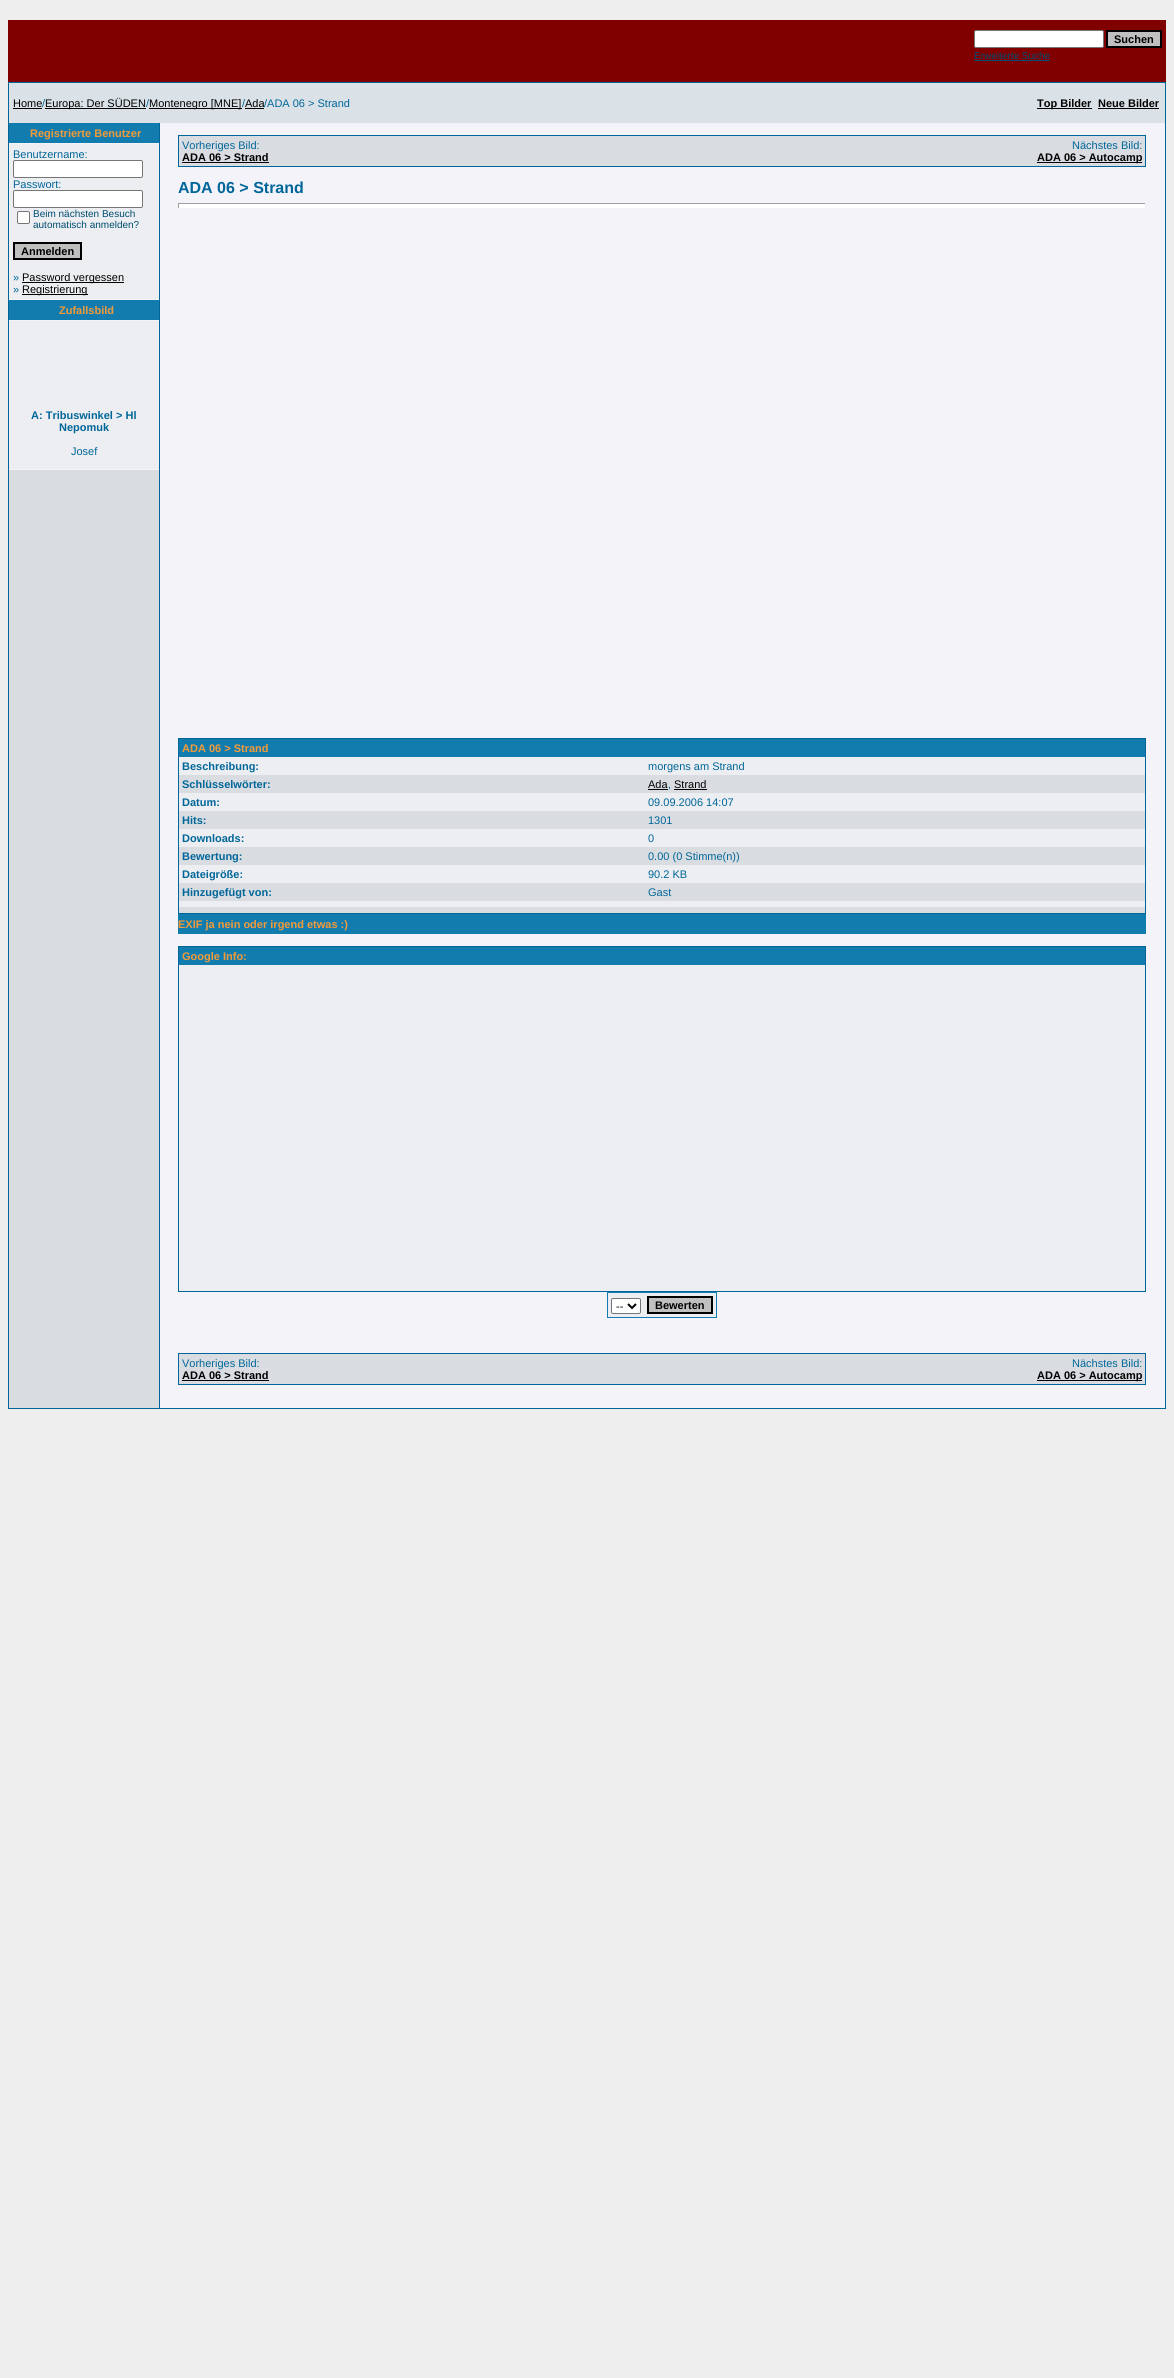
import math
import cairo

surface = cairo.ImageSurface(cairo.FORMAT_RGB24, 1174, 2378)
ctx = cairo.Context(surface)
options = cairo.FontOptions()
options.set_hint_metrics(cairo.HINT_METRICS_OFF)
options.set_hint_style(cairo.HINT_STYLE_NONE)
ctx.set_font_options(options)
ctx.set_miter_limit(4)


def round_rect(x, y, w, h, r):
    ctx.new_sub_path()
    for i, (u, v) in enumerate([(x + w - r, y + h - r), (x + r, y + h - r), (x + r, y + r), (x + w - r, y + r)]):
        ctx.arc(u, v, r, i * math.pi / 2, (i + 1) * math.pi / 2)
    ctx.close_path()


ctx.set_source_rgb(0.933, 0.933, 0.933)
ctx.paint()
ctx.set_source_rgb(0.502, 0, 0)
ctx.rectangle(8, 20, 1158, 62)
ctx.fill()
ctx.set_source_rgb(1, 1, 1)
round_rect(974.5, 30.5, 129, 17, 1.5)
ctx.fill_preserve()
ctx.set_source_rgb(0.463, 0.463, 0.463)
ctx.set_line_width(1)
ctx.stroke()
ctx.set_source_rgb(0.753, 0.753, 0.753)
ctx.rectangle(1107, 31, 54, 16)
ctx.fill_preserve()
ctx.set_source_rgb(0, 0, 0)
ctx.set_line_width(2)
ctx.stroke()
ctx.select_font_face("Liberation Sans", cairo.FONT_SLANT_NORMAL, cairo.FONT_WEIGHT_BOLD)
ctx.set_font_size(11)
ctx.move_to(1114, 43)
ctx.show_text("Suchen")
ctx.select_font_face("Liberation Sans")
ctx.set_font_size(10)
ctx.set_source_rgb(0, 0.302, 0.443)
ctx.move_to(974, 59)
ctx.show_text("Erweiterte Suche")
ctx.rectangle(974, 60, 76, 1)
ctx.fill()
ctx.set_source_rgb(0, 0.4, 0.6)
ctx.rectangle(8, 82, 1158, 1327)
ctx.fill()
ctx.set_source_rgb(0.953, 0.953, 0.973)
ctx.rectangle(160, 123, 1005, 1285)
ctx.fill()
ctx.set_source_rgb(0.859, 0.886, 0.906)
ctx.rectangle(9, 83, 1156, 40)
ctx.fill()
ctx.set_font_size(11)
ctx.set_source_rgb(0, 0, 0)
ctx.move_to(13, 107)
ctx.show_text("Home")
ctx.rectangle(13, 108, 29, 1)
ctx.fill()
ctx.set_source_rgb(0, 0.4, 0.6)
ctx.move_to(42, 107)
ctx.show_text("/")
ctx.set_source_rgb(0, 0, 0)
ctx.rectangle(45, 108, 101, 1)
ctx.fill()
ctx.move_to(45, 107)
ctx.show_text("Europa: Der SÜDEN")
ctx.set_source_rgb(0, 0.4, 0.6)
ctx.move_to(146, 107)
ctx.show_text("/")
ctx.set_source_rgb(0, 0, 0)
ctx.rectangle(149, 108, 93, 1)
ctx.fill()
ctx.move_to(149, 107)
ctx.show_text("Montenegro [MNE]")
ctx.set_source_rgb(0, 0.4, 0.6)
ctx.move_to(242, 107)
ctx.show_text("/")
ctx.set_source_rgb(0, 0, 0)
ctx.rectangle(245, 108, 19, 1)
ctx.fill()
ctx.move_to(245, 107)
ctx.show_text("Ada")
ctx.set_source_rgb(0, 0.4, 0.6)
ctx.move_to(264, 107)
ctx.show_text("/ADA 06 > Strand")
ctx.set_source_rgb(0, 0, 0)
ctx.rectangle(1037, 108, 55, 1)
ctx.fill()
ctx.select_font_face("Liberation Sans", cairo.FONT_SLANT_NORMAL, cairo.FONT_WEIGHT_BOLD)
ctx.move_to(1037, 107)
ctx.show_text("Top Bilder")
ctx.move_to(1098, 107)
ctx.show_text("Neue Bilder")
ctx.rectangle(1098, 108, 61, 1)
ctx.fill()
ctx.set_source_rgb(0.851, 0.867, 0.882)
ctx.rectangle(9, 470, 150, 938)
ctx.fill()
ctx.set_source_rgb(0.071, 0.486, 0.686)
ctx.rectangle(9, 123, 150, 20)
ctx.fill()
ctx.set_source_rgb(0.957, 0.608, 0.224)
ctx.move_to(30, 137)
ctx.show_text("Registrierte Benutzer")
ctx.set_source_rgb(0.953, 0.953, 0.973)
ctx.rectangle(9, 143, 150, 1)
ctx.fill()
ctx.set_source_rgb(0.922, 0.933, 0.945)
ctx.rectangle(9, 144, 150, 155)
ctx.fill()
ctx.select_font_face("Liberation Sans")
ctx.set_source_rgb(0, 0.4, 0.6)
ctx.move_to(13, 158)
ctx.show_text("Benutzername:")
ctx.set_source_rgb(1, 1, 1)
round_rect(13.5, 160.5, 129, 17, 1.5)
ctx.fill_preserve()
ctx.set_source_rgb(0.463, 0.463, 0.463)
ctx.set_line_width(1)
ctx.stroke()
ctx.set_source_rgb(0, 0.4, 0.6)
ctx.move_to(13, 188)
ctx.show_text("Passwort:")
ctx.set_source_rgb(1, 1, 1)
round_rect(13.5, 190.5, 129, 17, 1.5)
ctx.fill_preserve()
ctx.set_source_rgb(0.463, 0.463, 0.463)
ctx.stroke()
ctx.set_source_rgb(1, 1, 1)
round_rect(17.5, 211.5, 12, 12, 1.5)
ctx.fill_preserve()
ctx.set_source_rgb(0.463, 0.463, 0.463)
ctx.stroke()
ctx.set_font_size(10)
ctx.set_source_rgb(0, 0.302, 0.443)
ctx.move_to(33, 217)
ctx.show_text("Beim nächsten Besuch")
ctx.move_to(33, 228)
ctx.show_text("automatisch anmelden?")
ctx.set_source_rgb(0.753, 0.753, 0.753)
ctx.rectangle(14, 243, 67, 16)
ctx.fill_preserve()
ctx.set_source_rgb(0, 0, 0)
ctx.set_line_width(2)
ctx.stroke()
ctx.select_font_face("Liberation Sans", cairo.FONT_SLANT_NORMAL, cairo.FONT_WEIGHT_BOLD)
ctx.set_font_size(11)
ctx.move_to(21, 255)
ctx.show_text("Anmelden")
ctx.select_font_face("Liberation Sans")
ctx.set_source_rgb(0, 0.4, 0.6)
ctx.move_to(13, 281)
ctx.show_text("»")
ctx.set_source_rgb(0, 0, 0)
ctx.rectangle(22, 282, 102, 1)
ctx.fill()
ctx.move_to(22, 281)
ctx.show_text("Password vergessen")
ctx.set_source_rgb(0, 0.4, 0.6)
ctx.move_to(13, 293)
ctx.show_text("»")
ctx.set_source_rgb(0, 0, 0)
ctx.rectangle(22, 294, 66, 1)
ctx.fill()
ctx.move_to(22, 293)
ctx.show_text("Registrierung")
ctx.set_source_rgb(0.953, 0.953, 0.973)
ctx.rectangle(9, 299, 150, 1)
ctx.fill()
ctx.set_source_rgb(0.071, 0.486, 0.686)
ctx.rectangle(9, 300, 150, 20)
ctx.fill()
ctx.select_font_face("Liberation Sans", cairo.FONT_SLANT_NORMAL, cairo.FONT_WEIGHT_BOLD)
ctx.set_source_rgb(0.957, 0.608, 0.224)
ctx.move_to(59, 314)
ctx.show_text("Zufallsbild")
ctx.set_source_rgb(0.953, 0.953, 0.973)
ctx.rectangle(9, 320, 150, 1)
ctx.fill()
ctx.set_source_rgb(0.922, 0.933, 0.945)
ctx.rectangle(9, 321, 150, 148)
ctx.fill()
ctx.set_source_rgb(0, 0.4, 0.6)
ctx.move_to(31, 419)
ctx.show_text("A: Tribuswinkel > Hl")
ctx.move_to(59, 431)
ctx.show_text("Nepomuk")
ctx.select_font_face("Liberation Sans")
ctx.move_to(71, 455)
ctx.show_text("Josef")
ctx.set_source_rgb(0.953, 0.953, 0.973)
ctx.rectangle(9, 469, 150, 1)
ctx.fill()
ctx.set_source_rgb(0, 0.4, 0.6)
ctx.rectangle(178, 135, 968, 32)
ctx.fill()
ctx.set_source_rgb(0.851, 0.867, 0.882)
ctx.rectangle(179, 136, 966, 30)
ctx.fill()
ctx.set_source_rgb(0, 0.4, 0.6)
ctx.move_to(182, 149)
ctx.show_text("Vorheriges Bild:")
ctx.select_font_face("Liberation Sans", cairo.FONT_SLANT_NORMAL, cairo.FONT_WEIGHT_BOLD)
ctx.set_source_rgb(0, 0, 0)
ctx.move_to(182, 161)
ctx.show_text("ADA 06 > Strand")
ctx.rectangle(182, 162, 87, 1)
ctx.fill()
ctx.select_font_face("Liberation Sans")
ctx.set_source_rgb(0, 0.4, 0.6)
ctx.move_to(1072, 149)
ctx.show_text("Nächstes Bild:")
ctx.set_source_rgb(0, 0, 0)
ctx.rectangle(1037, 162, 105, 1)
ctx.fill()
ctx.select_font_face("Liberation Sans", cairo.FONT_SLANT_NORMAL, cairo.FONT_WEIGHT_BOLD)
ctx.move_to(1037, 161)
ctx.show_text("ADA 06 > Autocamp")
ctx.set_font_size(16)
ctx.set_source_rgb(0, 0.4, 0.6)
ctx.move_to(178, 193)
ctx.show_text("ADA 06 > Strand")
ctx.set_source_rgb(1, 1, 1)
ctx.rectangle(178, 204, 968, 4)
ctx.fill()
ctx.set_source_rgb(0.624, 0.624, 0.624)
ctx.rectangle(178, 203, 968, 1)
ctx.fill()
ctx.set_source_rgb(0.933, 0.933, 0.933)
ctx.rectangle(1145, 203, 1, 5)
ctx.fill()
ctx.set_source_rgb(0.624, 0.624, 0.624)
ctx.rectangle(178, 203, 1, 5)
ctx.fill()
ctx.set_source_rgb(0, 0.4, 0.6)
ctx.rectangle(178, 738, 968, 176)
ctx.fill()
ctx.set_source_rgb(0.071, 0.486, 0.686)
ctx.rectangle(179, 739, 966, 18)
ctx.fill()
ctx.set_font_size(11)
ctx.set_source_rgb(0.957, 0.608, 0.224)
ctx.move_to(182, 752)
ctx.show_text("ADA 06 > Strand")
ctx.set_source_rgb(0.922, 0.933, 0.945)
ctx.rectangle(179, 757, 966, 18)
ctx.fill()
ctx.set_source_rgb(0, 0.4, 0.6)
ctx.move_to(182, 770)
ctx.show_text("Beschreibung:")
ctx.select_font_face("Liberation Sans")
ctx.move_to(648, 770)
ctx.show_text("morgens am Strand")
ctx.set_source_rgb(0.851, 0.867, 0.882)
ctx.rectangle(179, 775, 966, 18)
ctx.fill()
ctx.select_font_face("Liberation Sans", cairo.FONT_SLANT_NORMAL, cairo.FONT_WEIGHT_BOLD)
ctx.set_source_rgb(0, 0.4, 0.6)
ctx.move_to(182, 788)
ctx.show_text("Schlüsselwörter:")
ctx.select_font_face("Liberation Sans")
ctx.set_source_rgb(0, 0, 0)
ctx.move_to(648, 788)
ctx.show_text("Ada")
ctx.rectangle(648, 789, 20, 1)
ctx.fill()
ctx.set_source_rgb(0, 0.4, 0.6)
ctx.move_to(668, 788)
ctx.show_text(",")
ctx.set_source_rgb(0, 0, 0)
ctx.move_to(674, 788)
ctx.show_text("Strand")
ctx.rectangle(674, 789, 33, 1)
ctx.fill()
ctx.set_source_rgb(0.922, 0.933, 0.945)
ctx.rectangle(179, 793, 966, 18)
ctx.fill()
ctx.select_font_face("Liberation Sans", cairo.FONT_SLANT_NORMAL, cairo.FONT_WEIGHT_BOLD)
ctx.set_source_rgb(0, 0.4, 0.6)
ctx.move_to(182, 806)
ctx.show_text("Datum:")
ctx.select_font_face("Liberation Sans")
ctx.move_to(648, 806)
ctx.show_text("09.09.2006 14:07")
ctx.set_source_rgb(0.851, 0.867, 0.882)
ctx.rectangle(179, 811, 966, 18)
ctx.fill()
ctx.select_font_face("Liberation Sans", cairo.FONT_SLANT_NORMAL, cairo.FONT_WEIGHT_BOLD)
ctx.set_source_rgb(0, 0.4, 0.6)
ctx.move_to(182, 824)
ctx.show_text("Hits:")
ctx.select_font_face("Liberation Sans")
ctx.move_to(648, 824)
ctx.show_text("1301")
ctx.set_source_rgb(0.922, 0.933, 0.945)
ctx.rectangle(179, 829, 966, 18)
ctx.fill()
ctx.select_font_face("Liberation Sans", cairo.FONT_SLANT_NORMAL, cairo.FONT_WEIGHT_BOLD)
ctx.set_source_rgb(0, 0.4, 0.6)
ctx.move_to(182, 842)
ctx.show_text("Downloads:")
ctx.select_font_face("Liberation Sans")
ctx.move_to(648, 842)
ctx.show_text("0")
ctx.set_source_rgb(0.851, 0.867, 0.882)
ctx.rectangle(179, 847, 966, 18)
ctx.fill()
ctx.select_font_face("Liberation Sans", cairo.FONT_SLANT_NORMAL, cairo.FONT_WEIGHT_BOLD)
ctx.set_source_rgb(0, 0.4, 0.6)
ctx.move_to(182, 860)
ctx.show_text("Bewertung:")
ctx.select_font_face("Liberation Sans")
ctx.move_to(648, 860)
ctx.show_text("0.00 (0 Stimme(n))")
ctx.set_source_rgb(0.922, 0.933, 0.945)
ctx.rectangle(179, 865, 966, 18)
ctx.fill()
ctx.select_font_face("Liberation Sans", cairo.FONT_SLANT_NORMAL, cairo.FONT_WEIGHT_BOLD)
ctx.set_source_rgb(0, 0.4, 0.6)
ctx.move_to(182, 878)
ctx.show_text("Dateigröße:")
ctx.select_font_face("Liberation Sans")
ctx.move_to(648, 878)
ctx.show_text("90.2 KB")
ctx.set_source_rgb(0.851, 0.867, 0.882)
ctx.rectangle(179, 883, 966, 18)
ctx.fill()
ctx.select_font_face("Liberation Sans", cairo.FONT_SLANT_NORMAL, cairo.FONT_WEIGHT_BOLD)
ctx.set_source_rgb(0, 0.4, 0.6)
ctx.move_to(182, 896)
ctx.show_text("Hinzugefügt von:")
ctx.select_font_face("Liberation Sans")
ctx.move_to(648, 896)
ctx.show_text("Gast")
ctx.set_source_rgb(0.922, 0.933, 0.945)
ctx.rectangle(179, 901, 966, 6)
ctx.fill()
ctx.set_source_rgb(0.851, 0.867, 0.882)
ctx.rectangle(179, 907, 966, 6)
ctx.fill()
ctx.set_source_rgb(0.071, 0.486, 0.686)
ctx.rectangle(178, 914, 968, 20)
ctx.fill()
ctx.select_font_face("Liberation Sans", cairo.FONT_SLANT_NORMAL, cairo.FONT_WEIGHT_BOLD)
ctx.set_source_rgb(0.957, 0.608, 0.224)
ctx.move_to(178, 928)
ctx.show_text("EXIF ja nein oder irgend etwas :)")
ctx.set_source_rgb(0, 0.4, 0.6)
ctx.rectangle(178, 946, 968, 346)
ctx.fill()
ctx.set_source_rgb(0.071, 0.486, 0.686)
ctx.rectangle(179, 947, 966, 18)
ctx.fill()
ctx.set_source_rgb(0.957, 0.608, 0.224)
ctx.move_to(182, 960)
ctx.show_text("Google Info:")
ctx.set_source_rgb(0.922, 0.933, 0.945)
ctx.rectangle(179, 965, 966, 326)
ctx.fill()
ctx.set_source_rgb(0.071, 0.486, 0.686)
ctx.rectangle(607, 1292, 110, 26)
ctx.fill()
ctx.set_source_rgb(0.922, 0.933, 0.945)
ctx.rectangle(608, 1293, 108, 24)
ctx.fill()
ctx.set_source_rgb(1, 1, 1)
round_rect(611.5, 1298.5, 29, 15, 1.5)
ctx.fill_preserve()
ctx.set_source_rgb(0.463, 0.463, 0.463)
ctx.set_line_width(1)
ctx.stroke()
ctx.new_path()
ctx.move_to(628, 1304)
ctx.line_to(632, 1308)
ctx.line_to(636, 1304)
ctx.set_source_rgb(0, 0, 0)
ctx.set_line_width(2)
ctx.stroke()
ctx.select_font_face("Liberation Sans")
ctx.move_to(616, 1310)
ctx.show_text("--")
ctx.set_source_rgb(0.753, 0.753, 0.753)
ctx.rectangle(648, 1297, 64, 16)
ctx.fill_preserve()
ctx.set_source_rgb(0, 0, 0)
ctx.stroke()
ctx.select_font_face("Liberation Sans", cairo.FONT_SLANT_NORMAL, cairo.FONT_WEIGHT_BOLD)
ctx.move_to(655, 1309)
ctx.show_text("Bewerten")
ctx.set_source_rgb(0, 0.4, 0.6)
ctx.rectangle(178, 1353, 968, 32)
ctx.fill()
ctx.set_source_rgb(0.851, 0.867, 0.882)
ctx.rectangle(179, 1354, 966, 30)
ctx.fill()
ctx.select_font_face("Liberation Sans")
ctx.set_source_rgb(0, 0.4, 0.6)
ctx.move_to(182, 1367)
ctx.show_text("Vorheriges Bild:")
ctx.select_font_face("Liberation Sans", cairo.FONT_SLANT_NORMAL, cairo.FONT_WEIGHT_BOLD)
ctx.set_source_rgb(0, 0, 0)
ctx.move_to(182, 1379)
ctx.show_text("ADA 06 > Strand")
ctx.rectangle(182, 1380, 87, 1)
ctx.fill()
ctx.select_font_face("Liberation Sans")
ctx.set_source_rgb(0, 0.4, 0.6)
ctx.move_to(1072, 1367)
ctx.show_text("Nächstes Bild:")
ctx.set_source_rgb(0, 0, 0)
ctx.rectangle(1037, 1380, 105, 1)
ctx.fill()
ctx.select_font_face("Liberation Sans", cairo.FONT_SLANT_NORMAL, cairo.FONT_WEIGHT_BOLD)
ctx.move_to(1037, 1379)
ctx.show_text("ADA 06 > Autocamp")
surface.write_to_png("page.png")
